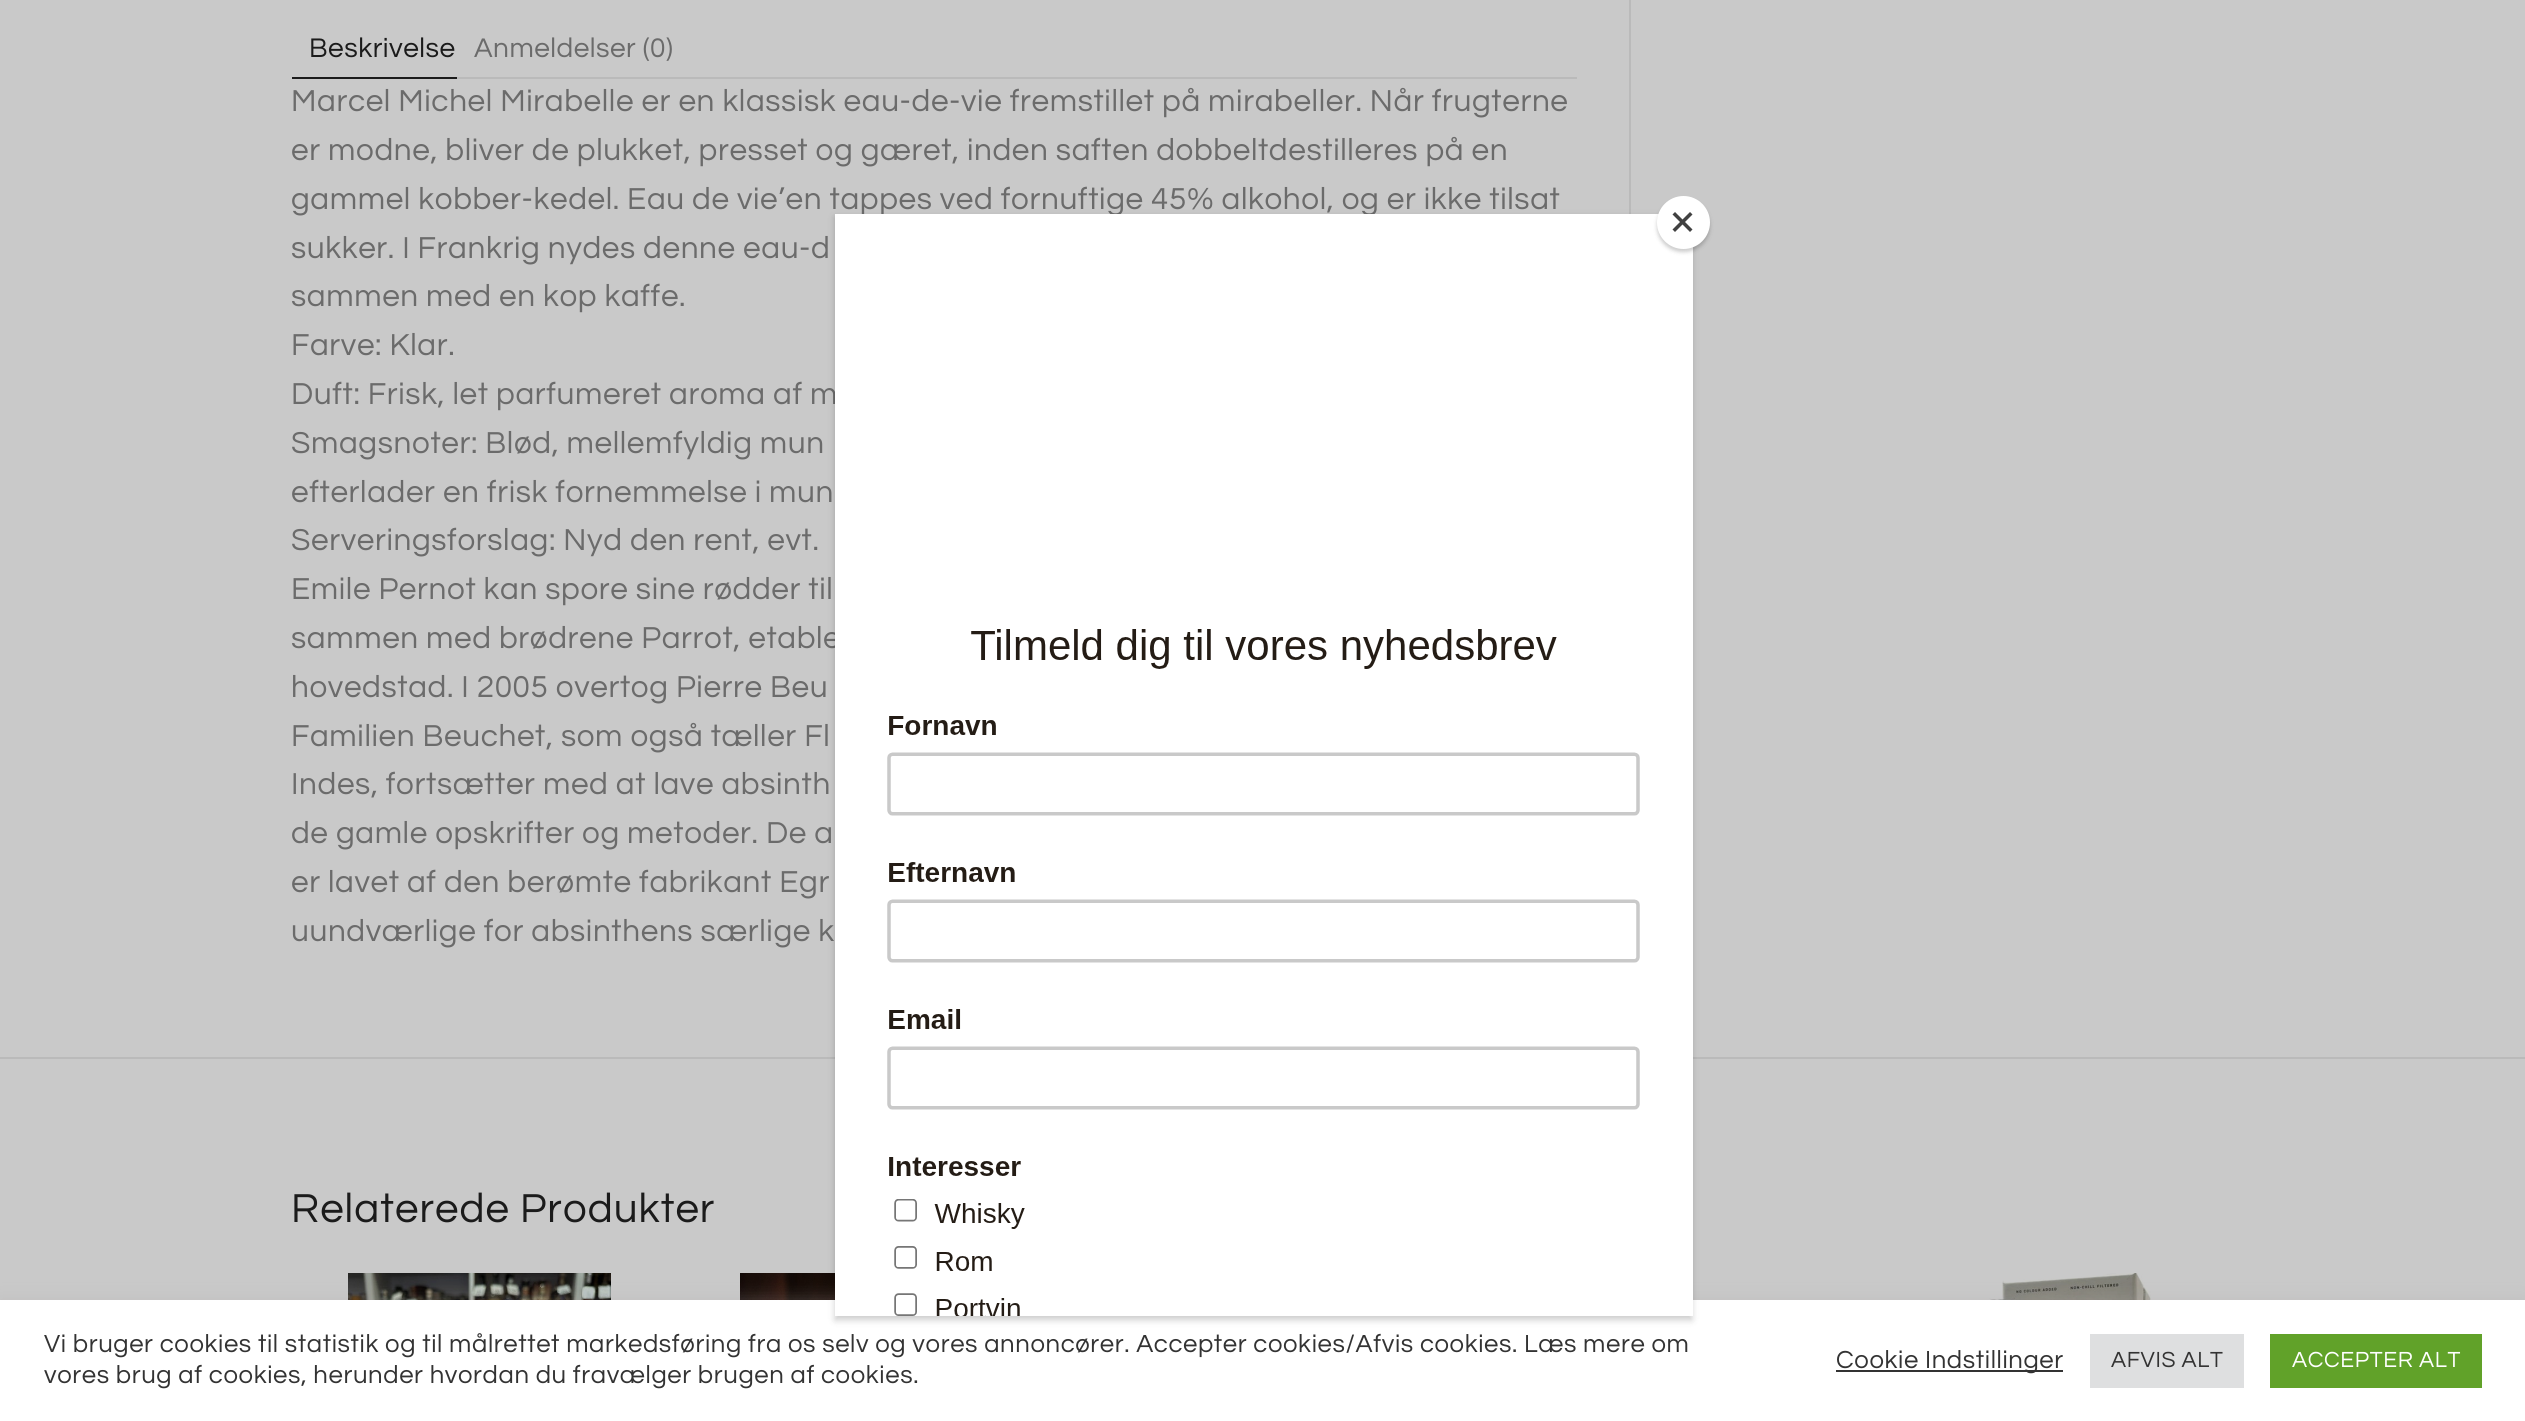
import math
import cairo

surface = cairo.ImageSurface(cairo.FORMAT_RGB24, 2525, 1421)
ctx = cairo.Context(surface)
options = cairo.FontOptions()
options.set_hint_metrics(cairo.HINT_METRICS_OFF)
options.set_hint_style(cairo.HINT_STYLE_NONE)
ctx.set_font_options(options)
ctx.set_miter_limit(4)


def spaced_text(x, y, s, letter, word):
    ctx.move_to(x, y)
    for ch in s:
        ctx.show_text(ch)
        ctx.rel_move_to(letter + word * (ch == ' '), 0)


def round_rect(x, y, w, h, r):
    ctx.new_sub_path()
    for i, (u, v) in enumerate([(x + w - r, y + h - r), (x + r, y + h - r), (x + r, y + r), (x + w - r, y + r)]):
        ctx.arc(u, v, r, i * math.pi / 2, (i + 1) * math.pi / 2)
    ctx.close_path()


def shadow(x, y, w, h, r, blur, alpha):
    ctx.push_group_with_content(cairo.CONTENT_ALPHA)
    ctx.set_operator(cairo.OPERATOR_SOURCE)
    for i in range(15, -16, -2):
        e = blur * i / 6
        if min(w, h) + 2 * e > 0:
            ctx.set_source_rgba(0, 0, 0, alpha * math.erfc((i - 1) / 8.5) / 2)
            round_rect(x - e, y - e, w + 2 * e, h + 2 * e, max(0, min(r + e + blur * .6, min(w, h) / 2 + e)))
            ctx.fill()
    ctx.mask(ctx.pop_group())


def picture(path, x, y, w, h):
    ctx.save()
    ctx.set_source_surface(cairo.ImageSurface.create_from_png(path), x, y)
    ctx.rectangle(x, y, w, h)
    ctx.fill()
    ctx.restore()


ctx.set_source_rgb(0.788, 0.788, 0.788)
ctx.paint()
ctx.set_source_rgb(0.729, 0.729, 0.729)
ctx.rectangle(1629, 0, 2, 214)
ctx.fill()
ctx.rectangle(457, 77, 1120, 2)
ctx.fill()
ctx.set_source_rgb(0.106, 0.106, 0.106)
ctx.rectangle(292, 77, 165, 2)
ctx.fill()
ctx.select_font_face("Questrial")
ctx.set_font_size(28)
spaced_text(309, 57, "Beskrivelse", 0.5, 0)
ctx.set_source_rgb(0.42, 0.42, 0.42)
spaced_text(474, 57, "Anmeldelser (0)", 0.5, 0)
ctx.set_font_size(31.5)
spaced_text(291, 111, "Marcel Michel Mirabelle er en klassisk eau-de-vie fremstillet på mirabeller. Når frugterne", 0.63, 0)
spaced_text(291, 160, "er modne, bliver de plukket, presset og gæret, inden saften dobbeltdestilleres på en", 0.63, 0)
spaced_text(291, 209, "gammel kobber-kedel. Eau de vie’en tappes ved fornuftige 45% alkohol, og er ikke tilsat", 0.63, 0)
spaced_text(291, 258, "sukker. I Frankrig nydes denne eau-d", 0.63, 0)
spaced_text(291, 306, "sammen med en kop kaffe.", 0.63, 0)
spaced_text(291, 355, "Farve: Klar.", 0.63, 0)
spaced_text(291, 404, "Duft: Frisk, let parfumeret aroma af m", 0.63, 0)
spaced_text(291, 453, "Smagsnoter: Blød, mellemfyldig mun", 0.63, 0)
spaced_text(291, 502, "efterlader en frisk fornemmelse i mun", 0.63, 0)
spaced_text(291, 550, "Serveringsforslag: Nyd den rent, evt.", 0.63, 0)
spaced_text(291, 599, "Emile Pernot kan spore sine rødder til", 0.63, 0)
spaced_text(291, 648, "sammen med brødrene Parrot, etable", 0.63, 0)
spaced_text(291, 697, "hovedstad. I 2005 overtog Pierre Beu", 0.63, 0)
spaced_text(291, 746, "Familien Beuchet, som også tæller Fl", 0.63, 0)
spaced_text(291, 794, "Indes, fortsætter med at lave absinth", 0.63, 0)
spaced_text(291, 843, "de gamle opskrifter og metoder. De a", 0.63, 0)
spaced_text(291, 892, "er lavet af den berømte fabrikant Egr", 0.63, 0)
spaced_text(291, 941, "uundværlige for absinthens særlige k", 0.63, 0)
ctx.set_source_rgb(0.729, 0.729, 0.729)
ctx.rectangle(0, 1057, 2525, 2)
ctx.fill()
ctx.set_font_size(42)
ctx.set_source_rgb(0.106, 0.106, 0.106)
spaced_text(291, 1222, "Relaterede Produkter", 1.05, 0)
picture("img1.png", 348, 1273, 263, 27)
picture("img2.png", 740, 1273, 95, 27)
picture("img3.png", 1693, 1273, 3, 27)
picture("img4.png", 1950, 1273, 201, 27)
ctx.set_source_rgb(0.675, 0.671, 0.671)
shadow(0, 1299, 2525, 120, 0, 9, 0.3)
ctx.set_source_rgb(1, 1, 1)
ctx.rectangle(0, 1300, 2525, 121)
ctx.fill()
ctx.set_source_rgb(0, 0, 0)
shadow(835, 217, 857, 1103, 0, 3.5, 0.2)
picture("img5.png", 835, 214, 858, 1102)
shadow(1657, 200, 53, 52, 26, 2, 0.2)
ctx.set_source_rgb(1, 1, 1)
ctx.arc(1683.5, 222.5, 26.5, 0, 2 * math.pi)
ctx.fill()
ctx.set_source_rgb(0.255, 0.255, 0.255)
ctx.new_path()
ctx.move_to(1690, 212)
ctx.line_to(1692.5, 214.5)
ctx.line_to(1675, 232)
ctx.line_to(1672.5, 229.5)
ctx.close_path()
ctx.fill()
ctx.new_path()
ctx.move_to(1672.5, 214.5)
ctx.line_to(1675, 212)
ctx.line_to(1692.5, 229.5)
ctx.line_to(1690, 232)
ctx.close_path()
ctx.fill()
ctx.set_font_size(25.67)
ctx.set_source_rgb(0.2, 0.2, 0.2)
spaced_text(44, 1352, "Vi bruger cookies til statistik og til målrettet markedsføring fra os selv og vores annoncører. Accepter cookies/Afvis cookies. Læs mere om", 0.63, 0)
spaced_text(44, 1383, "vores brug af cookies, herunder hvordan du fravælger brugen af cookies.", 0.63, 0)
ctx.rectangle(1836, 1370, 227, 2)
ctx.fill()
spaced_text(1836, 1368, "Cookie Indstillinger", 0.63, 0)
ctx.set_source_rgb(0.871, 0.875, 0.878)
ctx.rectangle(2090, 1334, 154, 54)
ctx.fill()
ctx.set_font_size(22.75)
ctx.set_source_rgb(0.2, 0.2, 0.2)
spaced_text(2111, 1367, "AFVIS ALT", 0.63, 0)
ctx.set_source_rgb(0.38, 0.635, 0.161)
ctx.rectangle(2270, 1334, 212, 54)
ctx.fill()
ctx.set_source_rgb(1, 1, 1)
spaced_text(2292, 1367, "ACCEPTER ALT", 0.63, 0)
surface.write_to_png("page.png")
